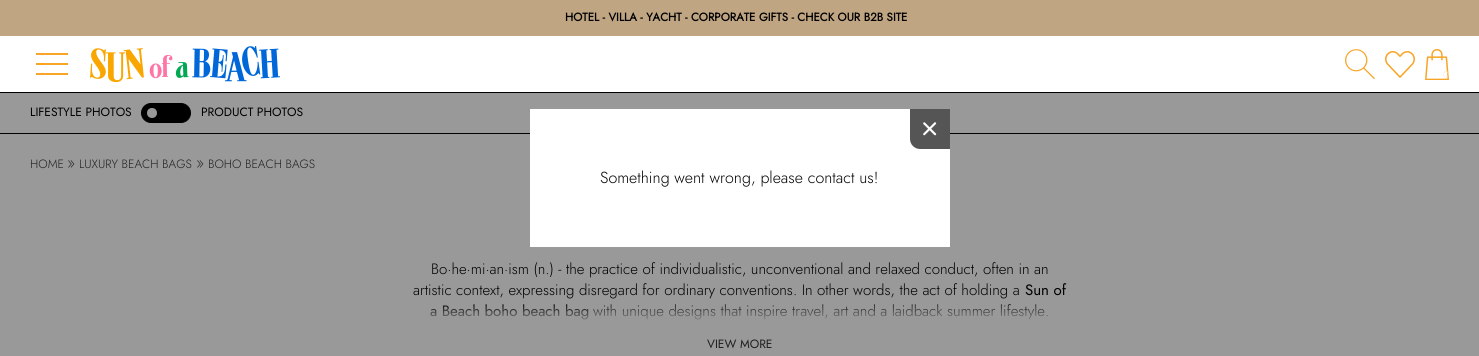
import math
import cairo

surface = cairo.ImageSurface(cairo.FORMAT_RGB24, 1479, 356)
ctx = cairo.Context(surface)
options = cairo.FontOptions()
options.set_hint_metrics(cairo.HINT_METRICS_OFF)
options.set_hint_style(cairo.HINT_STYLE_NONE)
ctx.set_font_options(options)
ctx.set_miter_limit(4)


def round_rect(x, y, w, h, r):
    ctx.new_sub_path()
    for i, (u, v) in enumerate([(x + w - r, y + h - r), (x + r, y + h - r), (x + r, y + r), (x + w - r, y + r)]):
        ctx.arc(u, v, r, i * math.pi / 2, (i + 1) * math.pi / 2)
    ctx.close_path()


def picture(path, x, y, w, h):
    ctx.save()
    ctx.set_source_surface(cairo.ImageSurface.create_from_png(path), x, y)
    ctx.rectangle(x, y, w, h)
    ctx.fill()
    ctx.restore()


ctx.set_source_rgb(0.6, 0.6, 0.6)
ctx.paint()
ctx.set_source_rgb(1, 1, 1)
ctx.rectangle(0, 36, 1479, 56)
ctx.fill()
ctx.set_source_rgb(0.969, 0.647, 0.157)
ctx.rectangle(36, 53, 32, 2)
ctx.fill()
ctx.rectangle(36, 63, 32, 2)
ctx.fill()
ctx.rectangle(36, 73, 32, 2)
ctx.fill()
ctx.set_source_rgb(0.749, 0.647, 0.51)
ctx.rectangle(0, 0, 1479, 36)
ctx.fill()
ctx.select_font_face("Jost", cairo.FONT_SLANT_NORMAL, cairo.FONT_WEIGHT_BOLD)
ctx.set_font_size(11.5)
ctx.set_source_rgb(0, 0, 0)
ctx.move_to(565, 21)
ctx.show_text("HOTEL - VILLA - YACHT - CORPORATE GIFTS - CHECK OUR B2B SITE")
picture("img1.png", 90, 46, 190, 36)
picture("img2.png", 1345, 49, 30, 31)
picture("img3.png", 1385, 51, 30, 27)
picture("img4.png", 1425, 49, 24, 31)
ctx.select_font_face("Jost Light")
ctx.set_font_size(10)
ctx.set_source_rgb(0.992, 0.906, 0.78)
ctx.move_to(1443, 78)
ctx.show_text("0")
ctx.set_source_rgb(0, 0, 0)
ctx.rectangle(0, 92, 1479, 1)
ctx.fill()
ctx.rectangle(0, 133, 1479, 1)
ctx.fill()
ctx.select_font_face("Jost")
ctx.set_font_size(12)
ctx.move_to(30, 116)
ctx.show_text("LIFESTYLE PHOTOS")
round_rect(141.5, 103.5, 49, 19, 9.5)
ctx.fill_preserve()
ctx.set_line_width(1)
ctx.stroke()
ctx.set_source_rgb(0.6, 0.6, 0.6)
ctx.arc(152, 113, 5, 0, 2 * math.pi)
ctx.fill()
ctx.set_source_rgb(0, 0, 0)
ctx.move_to(201, 116)
ctx.show_text("PRODUCT PHOTOS")
ctx.select_font_face("Jost Light")
ctx.set_source_rgb(0.122, 0.122, 0.122)
ctx.move_to(30, 168)
ctx.show_text("HOME")
ctx.set_font_size(16)
ctx.set_source_rgb(0.161, 0.161, 0.161)
ctx.move_to(67, 168)
ctx.show_text("»")
ctx.set_font_size(12)
ctx.set_source_rgb(0.122, 0.122, 0.122)
ctx.move_to(79, 168)
ctx.show_text("LUXURY BEACH BAGS")
ctx.set_font_size(16)
ctx.set_source_rgb(0.161, 0.161, 0.161)
ctx.move_to(196, 168)
ctx.show_text("»")
ctx.set_font_size(12)
ctx.set_source_rgb(0.122, 0.122, 0.122)
ctx.move_to(208, 168)
ctx.show_text("BOHO BEACH BAGS")
ctx.set_font_size(15)
ctx.set_source_rgb(0, 0, 0)
ctx.move_to(431, 274)
ctx.show_text("Bo·he·mi·an·ism (n.) - the practice of individualistic, unconventional and relaxed conduct, often in an")
ctx.move_to(413, 295)
ctx.show_text("artistic context, expressing disregard for ordinary conventions. In other words, the act of holding a")
ctx.select_font_face("Jost")
ctx.move_to(1025, 295)
ctx.show_text("Sun of")
ctx.move_to(430, 316)
ctx.show_text("a Beach boho beach bag")
ctx.select_font_face("Jost Light")
ctx.move_to(593, 316)
ctx.show_text("with unique designs that inspire travel, art and a laidback summer lifestyle.")
gradient = cairo.LinearGradient(740, 302, 740, 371)
gradient.add_color_stop_rgba(0, 0.6, 0.6, 0.6, 0)
gradient.add_color_stop_rgba(0.32, 0.6, 0.6, 0.6, 1)
ctx.set_source(gradient)
ctx.rectangle(430, 304, 618, 16)
ctx.fill()
ctx.select_font_face("Jost")
ctx.set_font_size(12)
ctx.set_source_rgb(0.122, 0.122, 0.122)
ctx.move_to(707, 348)
ctx.show_text("VIEW MORE")
ctx.set_source_rgb(1, 1, 1)
ctx.rectangle(530, 109, 420, 138)
ctx.fill()
ctx.set_source_rgb(0.333, 0.333, 0.333)
ctx.new_path()
ctx.move_to(910, 109)
ctx.line_to(950, 109)
ctx.line_to(950, 149)
ctx.line_to(920, 149)
ctx.curve_to(914.5, 149, 910, 144.5, 910, 139)
ctx.close_path()
ctx.fill()
picture("img5.png", 923, 122, 14, 14)
ctx.select_font_face("Jost Light")
ctx.set_font_size(16)
ctx.set_source_rgb(0, 0, 0)
ctx.move_to(600, 183)
ctx.show_text("Something went wrong, please contact us!")
surface.write_to_png("page.png")
